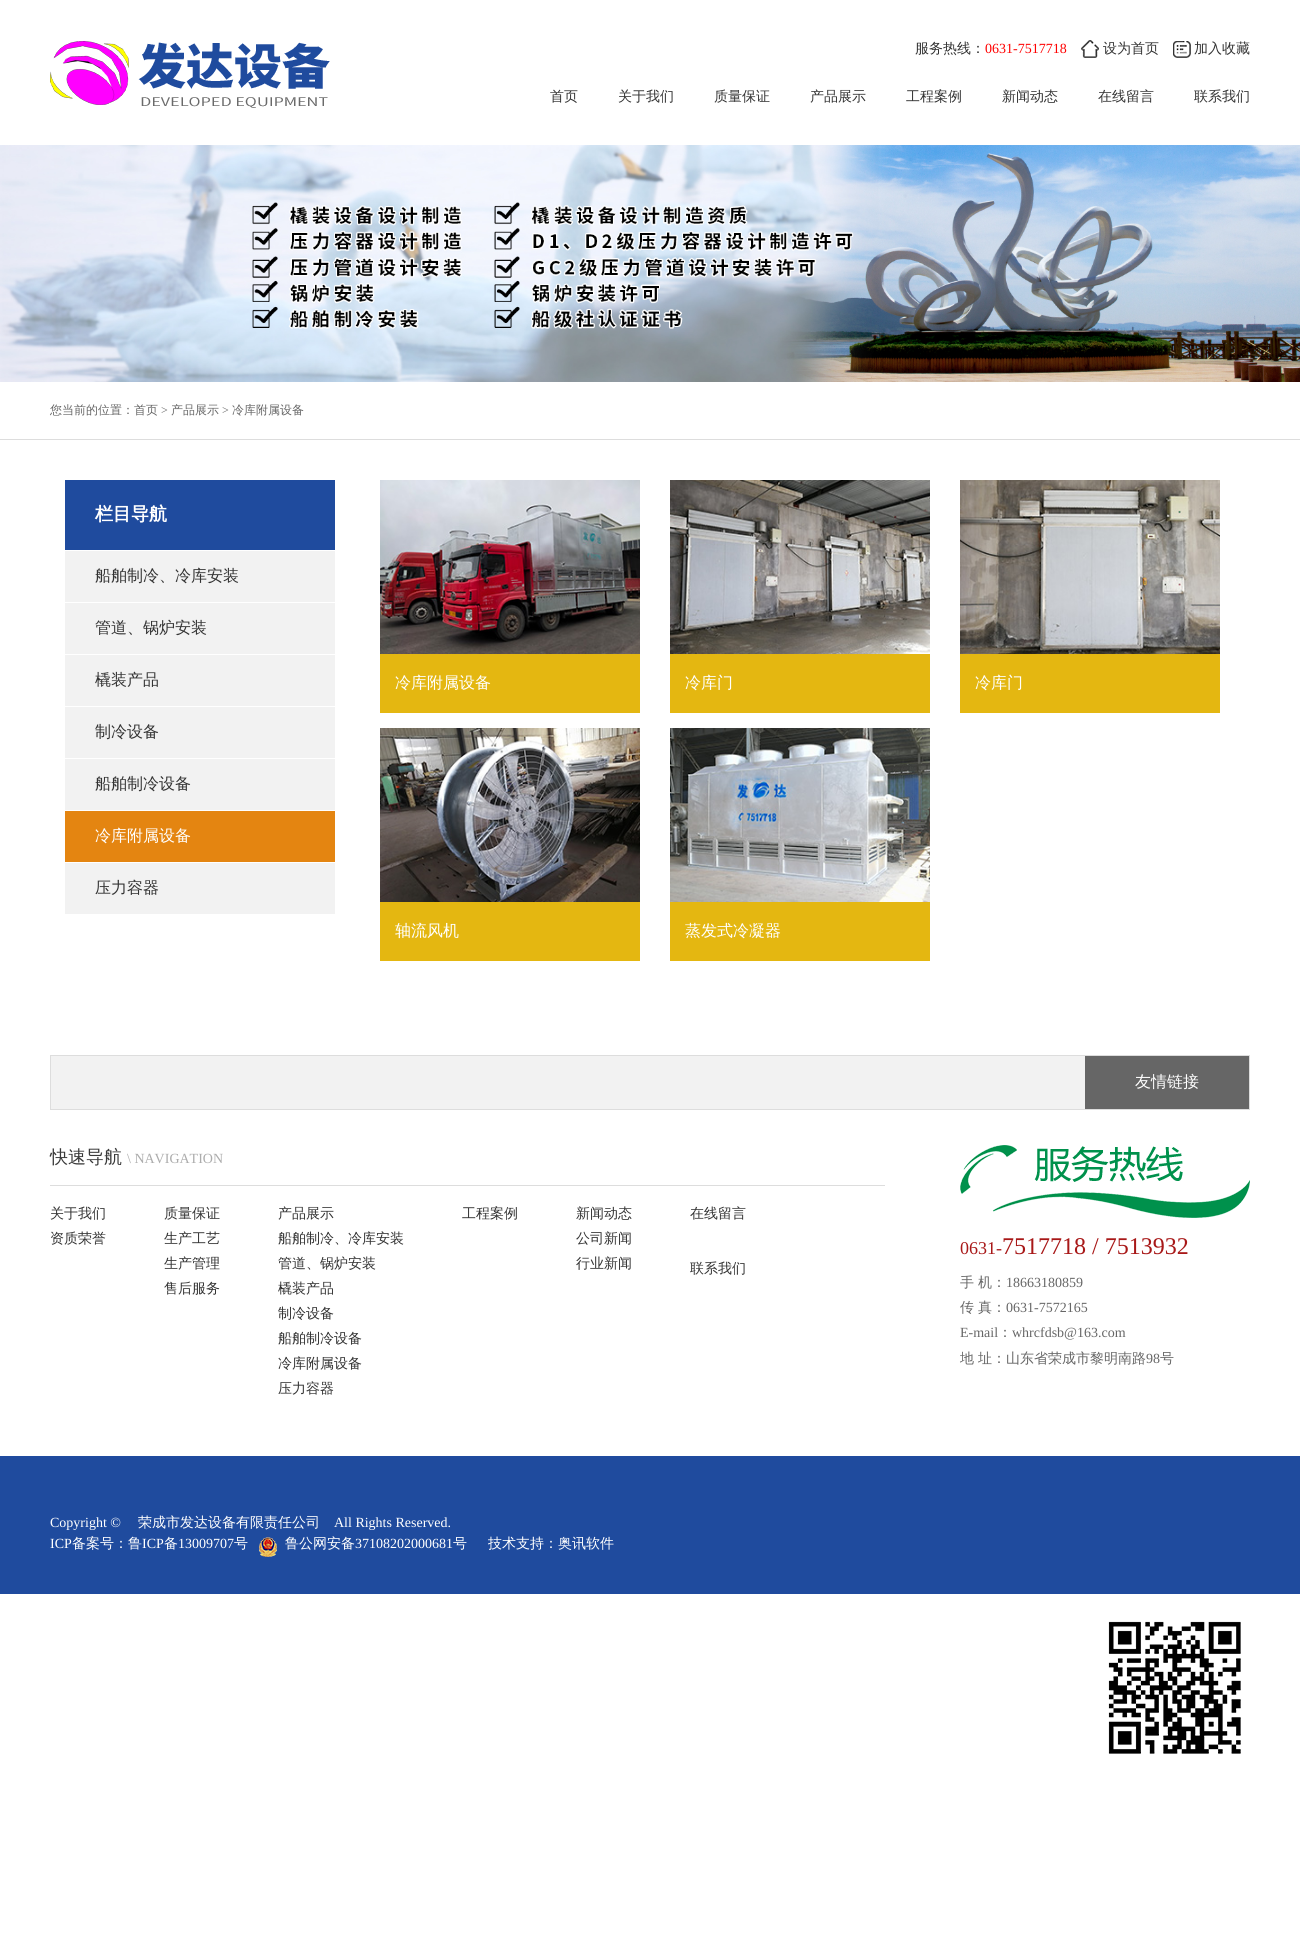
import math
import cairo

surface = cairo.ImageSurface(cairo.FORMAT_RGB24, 1300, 1959)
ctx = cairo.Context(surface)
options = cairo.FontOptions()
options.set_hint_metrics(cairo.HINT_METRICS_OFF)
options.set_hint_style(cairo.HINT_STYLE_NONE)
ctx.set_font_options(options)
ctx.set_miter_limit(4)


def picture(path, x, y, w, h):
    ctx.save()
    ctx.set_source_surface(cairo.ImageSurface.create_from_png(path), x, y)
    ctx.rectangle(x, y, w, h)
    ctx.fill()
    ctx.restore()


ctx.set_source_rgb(1, 1, 1)
ctx.paint()
picture("img1.png", 50, 41, 280, 67)
ctx.select_font_face("WenQuanYi Zen Hei Medium")
ctx.set_font_size(14)
ctx.set_source_rgb(0.2, 0.2, 0.2)
ctx.move_to(915, 53)
ctx.show_text("服务热线：")
ctx.select_font_face("Liberation Serif")
ctx.set_source_rgb(1, 0, 0)
ctx.move_to(985, 53)
ctx.show_text("0631-7517718")
picture("img2.png", 1081, 40, 18, 18)
ctx.select_font_face("WenQuanYi Zen Hei Medium")
ctx.set_source_rgb(0.2, 0.2, 0.2)
ctx.move_to(1103, 53)
ctx.show_text("设为首页")
picture("img3.png", 1173, 41, 18, 17)
ctx.move_to(1194, 53)
ctx.show_text("加入收藏")
ctx.move_to(550, 101)
ctx.show_text("首页")
ctx.move_to(618, 101)
ctx.show_text("关于我们")
ctx.move_to(714, 101)
ctx.show_text("质量保证")
ctx.move_to(810, 101)
ctx.show_text("产品展示")
ctx.move_to(906, 101)
ctx.show_text("工程案例")
ctx.move_to(1002, 101)
ctx.show_text("新闻动态")
ctx.move_to(1098, 101)
ctx.show_text("在线留言")
ctx.move_to(1194, 101)
ctx.show_text("联系我们")
picture("img4.png", 0, 145, 1300, 237)
ctx.set_source_rgb(0.867, 0.867, 0.867)
ctx.rectangle(0, 439, 1300, 1)
ctx.fill()
ctx.set_font_size(12)
ctx.set_source_rgb(0.4, 0.4, 0.4)
ctx.move_to(50, 414)
ctx.show_text("您当前的位置：首页")
ctx.select_font_face("Liberation Serif")
ctx.move_to(161, 414)
ctx.show_text(">")
ctx.select_font_face("WenQuanYi Zen Hei Medium")
ctx.move_to(171, 414)
ctx.show_text("产品展示")
ctx.select_font_face("Liberation Serif")
ctx.move_to(222, 414)
ctx.show_text(">")
ctx.select_font_face("WenQuanYi Zen Hei Medium")
ctx.move_to(232, 414)
ctx.show_text("冷库附属设备")
ctx.set_source_rgb(0.122, 0.294, 0.62)
ctx.rectangle(65, 480, 270, 70)
ctx.fill()
ctx.select_font_face("WenQuanYi Zen Hei", cairo.FONT_SLANT_NORMAL, cairo.FONT_WEIGHT_BOLD)
ctx.set_font_size(18)
ctx.set_source_rgb(1, 1, 1)
ctx.move_to(95, 520)
ctx.show_text("栏目导航")
ctx.set_source_rgb(0.949, 0.949, 0.949)
ctx.rectangle(65, 551, 270, 51)
ctx.fill()
ctx.select_font_face("WenQuanYi Zen Hei Medium")
ctx.set_font_size(16)
ctx.set_source_rgb(0.2, 0.2, 0.2)
ctx.move_to(95, 581)
ctx.show_text("船舶制冷、冷库安装")
ctx.set_source_rgb(0.949, 0.949, 0.949)
ctx.rectangle(65, 603, 270, 51)
ctx.fill()
ctx.set_source_rgb(0.2, 0.2, 0.2)
ctx.move_to(95, 633)
ctx.show_text("管道、锅炉安装")
ctx.set_source_rgb(0.949, 0.949, 0.949)
ctx.rectangle(65, 655, 270, 51)
ctx.fill()
ctx.set_source_rgb(0.2, 0.2, 0.2)
ctx.move_to(95, 685)
ctx.show_text("橇装产品")
ctx.set_source_rgb(0.949, 0.949, 0.949)
ctx.rectangle(65, 707, 270, 51)
ctx.fill()
ctx.set_source_rgb(0.2, 0.2, 0.2)
ctx.move_to(95, 737)
ctx.show_text("制冷设备")
ctx.set_source_rgb(0.949, 0.949, 0.949)
ctx.rectangle(65, 759, 270, 51)
ctx.fill()
ctx.set_source_rgb(0.2, 0.2, 0.2)
ctx.move_to(95, 789)
ctx.show_text("船舶制冷设备")
ctx.set_source_rgb(0.894, 0.522, 0.067)
ctx.rectangle(65, 811, 270, 51)
ctx.fill()
ctx.set_source_rgb(1, 1, 1)
ctx.move_to(95, 841)
ctx.show_text("冷库附属设备")
ctx.set_source_rgb(0.949, 0.949, 0.949)
ctx.rectangle(65, 863, 270, 51)
ctx.fill()
ctx.set_source_rgb(0.2, 0.2, 0.2)
ctx.move_to(95, 893)
ctx.show_text("压力容器")
picture("img5.png", 380, 480, 260, 174)
ctx.set_source_rgb(0.894, 0.718, 0.067)
ctx.rectangle(380, 654, 260, 59)
ctx.fill()
ctx.set_source_rgb(1, 1, 1)
ctx.move_to(395, 688)
ctx.show_text("冷库附属设备")
picture("img6.png", 670, 480, 260, 174)
ctx.set_source_rgb(0.894, 0.718, 0.067)
ctx.rectangle(670, 654, 260, 59)
ctx.fill()
ctx.set_source_rgb(1, 1, 1)
ctx.move_to(685, 688)
ctx.show_text("冷库门")
picture("img7.png", 960, 480, 260, 174)
ctx.set_source_rgb(0.894, 0.718, 0.067)
ctx.rectangle(960, 654, 260, 59)
ctx.fill()
ctx.set_source_rgb(1, 1, 1)
ctx.move_to(975, 688)
ctx.show_text("冷库门")
picture("img8.png", 380, 728, 260, 174)
ctx.set_source_rgb(0.894, 0.718, 0.067)
ctx.rectangle(380, 902, 260, 59)
ctx.fill()
ctx.set_source_rgb(1, 1, 1)
ctx.move_to(395, 936)
ctx.show_text("轴流风机")
picture("img9.png", 670, 728, 260, 174)
ctx.set_source_rgb(0.894, 0.718, 0.067)
ctx.rectangle(670, 902, 260, 59)
ctx.fill()
ctx.set_source_rgb(1, 1, 1)
ctx.move_to(685, 936)
ctx.show_text("蒸发式冷凝器")
ctx.set_source_rgb(0.949, 0.949, 0.949)
ctx.rectangle(51, 1056, 1034, 53)
ctx.fill()
ctx.rectangle(50.5, 1055.5, 1199, 54)
ctx.set_source_rgb(0.867, 0.867, 0.867)
ctx.set_line_width(1)
ctx.stroke()
ctx.set_source_rgb(0.4, 0.4, 0.4)
ctx.rectangle(1085, 1056, 164, 53)
ctx.fill()
ctx.set_source_rgb(1, 1, 1)
ctx.move_to(1135, 1087)
ctx.show_text("友情链接")
ctx.set_font_size(18)
ctx.set_source_rgb(0.224, 0.224, 0.224)
ctx.move_to(50, 1163)
ctx.show_text("快速导航")
ctx.select_font_face("Liberation Serif")
ctx.set_font_size(14)
ctx.set_source_rgb(0.675, 0.675, 0.675)
ctx.move_to(127, 1163)
ctx.show_text("\\ NAVIGATION")
ctx.set_source_rgb(0.867, 0.867, 0.867)
ctx.rectangle(50, 1185, 835, 1)
ctx.fill()
ctx.select_font_face("WenQuanYi Zen Hei Medium")
ctx.set_source_rgb(0.2, 0.2, 0.2)
ctx.move_to(50, 1218)
ctx.show_text("关于我们")
ctx.move_to(50, 1243)
ctx.show_text("资质荣誉")
ctx.move_to(164, 1218)
ctx.show_text("质量保证")
ctx.move_to(164, 1243)
ctx.show_text("生产工艺")
ctx.move_to(164, 1268)
ctx.show_text("生产管理")
ctx.move_to(164, 1293)
ctx.show_text("售后服务")
ctx.move_to(278, 1218)
ctx.show_text("产品展示")
ctx.move_to(278, 1243)
ctx.show_text("船舶制冷、冷库安装")
ctx.move_to(278, 1268)
ctx.show_text("管道、锅炉安装")
ctx.move_to(278, 1293)
ctx.show_text("橇装产品")
ctx.move_to(278, 1318)
ctx.show_text("制冷设备")
ctx.move_to(278, 1343)
ctx.show_text("船舶制冷设备")
ctx.move_to(278, 1368)
ctx.show_text("冷库附属设备")
ctx.move_to(278, 1393)
ctx.show_text("压力容器")
ctx.move_to(462, 1218)
ctx.show_text("工程案例")
ctx.move_to(576, 1218)
ctx.show_text("新闻动态")
ctx.move_to(576, 1243)
ctx.show_text("公司新闻")
ctx.move_to(576, 1268)
ctx.show_text("行业新闻")
ctx.move_to(690, 1218)
ctx.show_text("在线留言")
ctx.move_to(690, 1273)
ctx.show_text("联系我们")
picture("img10.png", 960, 1145, 290, 73)
ctx.select_font_face("Liberation Serif")
ctx.set_font_size(18)
ctx.set_source_rgb(0.659, 0.094, 0.094)
ctx.move_to(960, 1254)
ctx.show_text("0631-")
ctx.set_font_size(24)
ctx.move_to(1002, 1254)
ctx.show_text("7517718 / 7513932")
ctx.select_font_face("WenQuanYi Zen Hei Medium")
ctx.set_font_size(14)
ctx.set_source_rgb(0.4, 0.4, 0.4)
ctx.move_to(960, 1287)
ctx.show_text("手")
ctx.move_to(978, 1287)
ctx.show_text("机：")
ctx.select_font_face("Liberation Serif")
ctx.move_to(1006, 1287)
ctx.show_text("18663180859")
ctx.select_font_face("WenQuanYi Zen Hei Medium")
ctx.move_to(960, 1312)
ctx.show_text("传")
ctx.move_to(978, 1312)
ctx.show_text("真：")
ctx.select_font_face("Liberation Serif")
ctx.move_to(1006, 1312)
ctx.show_text("0631-7572165")
ctx.move_to(960, 1337)
ctx.show_text("E-mail")
ctx.select_font_face("WenQuanYi Zen Hei Medium")
ctx.move_to(998, 1337)
ctx.show_text("：")
ctx.select_font_face("Liberation Serif")
ctx.move_to(1012, 1337)
ctx.show_text("whrcfdsb@163.com")
ctx.select_font_face("WenQuanYi Zen Hei Medium")
ctx.move_to(960, 1363)
ctx.show_text("地")
ctx.move_to(978, 1363)
ctx.show_text("址：山东省荣成市黎明南路")
ctx.select_font_face("Liberation Serif")
ctx.move_to(1146, 1363)
ctx.show_text("98")
ctx.select_font_face("WenQuanYi Zen Hei Medium")
ctx.move_to(1160, 1363)
ctx.show_text("号")
ctx.set_source_rgb(0.122, 0.294, 0.62)
ctx.rectangle(0, 1456, 1300, 138)
ctx.fill()
ctx.select_font_face("Liberation Serif")
ctx.set_source_rgb(1, 1, 1)
ctx.move_to(50, 1527)
ctx.show_text("Copyright ©")
ctx.select_font_face("WenQuanYi Zen Hei Medium")
ctx.move_to(138, 1527)
ctx.show_text("荣成市发达设备有限责任公司")
ctx.select_font_face("Liberation Serif")
ctx.move_to(334, 1527)
ctx.show_text("All Rights Reserved.")
ctx.move_to(50, 1548)
ctx.show_text("ICP")
ctx.select_font_face("WenQuanYi Zen Hei Medium")
ctx.move_to(72, 1548)
ctx.show_text("备案号：鲁")
ctx.select_font_face("Liberation Serif")
ctx.move_to(142, 1548)
ctx.show_text("ICP")
ctx.select_font_face("WenQuanYi Zen Hei Medium")
ctx.move_to(164, 1548)
ctx.show_text("备")
ctx.select_font_face("Liberation Serif")
ctx.move_to(178, 1548)
ctx.show_text("13009707")
ctx.select_font_face("WenQuanYi Zen Hei Medium")
ctx.move_to(234, 1548)
ctx.show_text("号")
picture("img11.png", 259, 1537, 18, 20)
ctx.move_to(285, 1548)
ctx.show_text("鲁公网安备")
ctx.select_font_face("Liberation Serif")
ctx.move_to(355, 1548)
ctx.show_text("37108202000681")
ctx.select_font_face("WenQuanYi Zen Hei Medium")
ctx.move_to(453, 1548)
ctx.show_text("号")
ctx.move_to(488, 1548)
ctx.show_text("技术支持：奥讯软件")
picture("img12.png", 1108, 1621, 133, 133)
surface.write_to_png("page.png")
